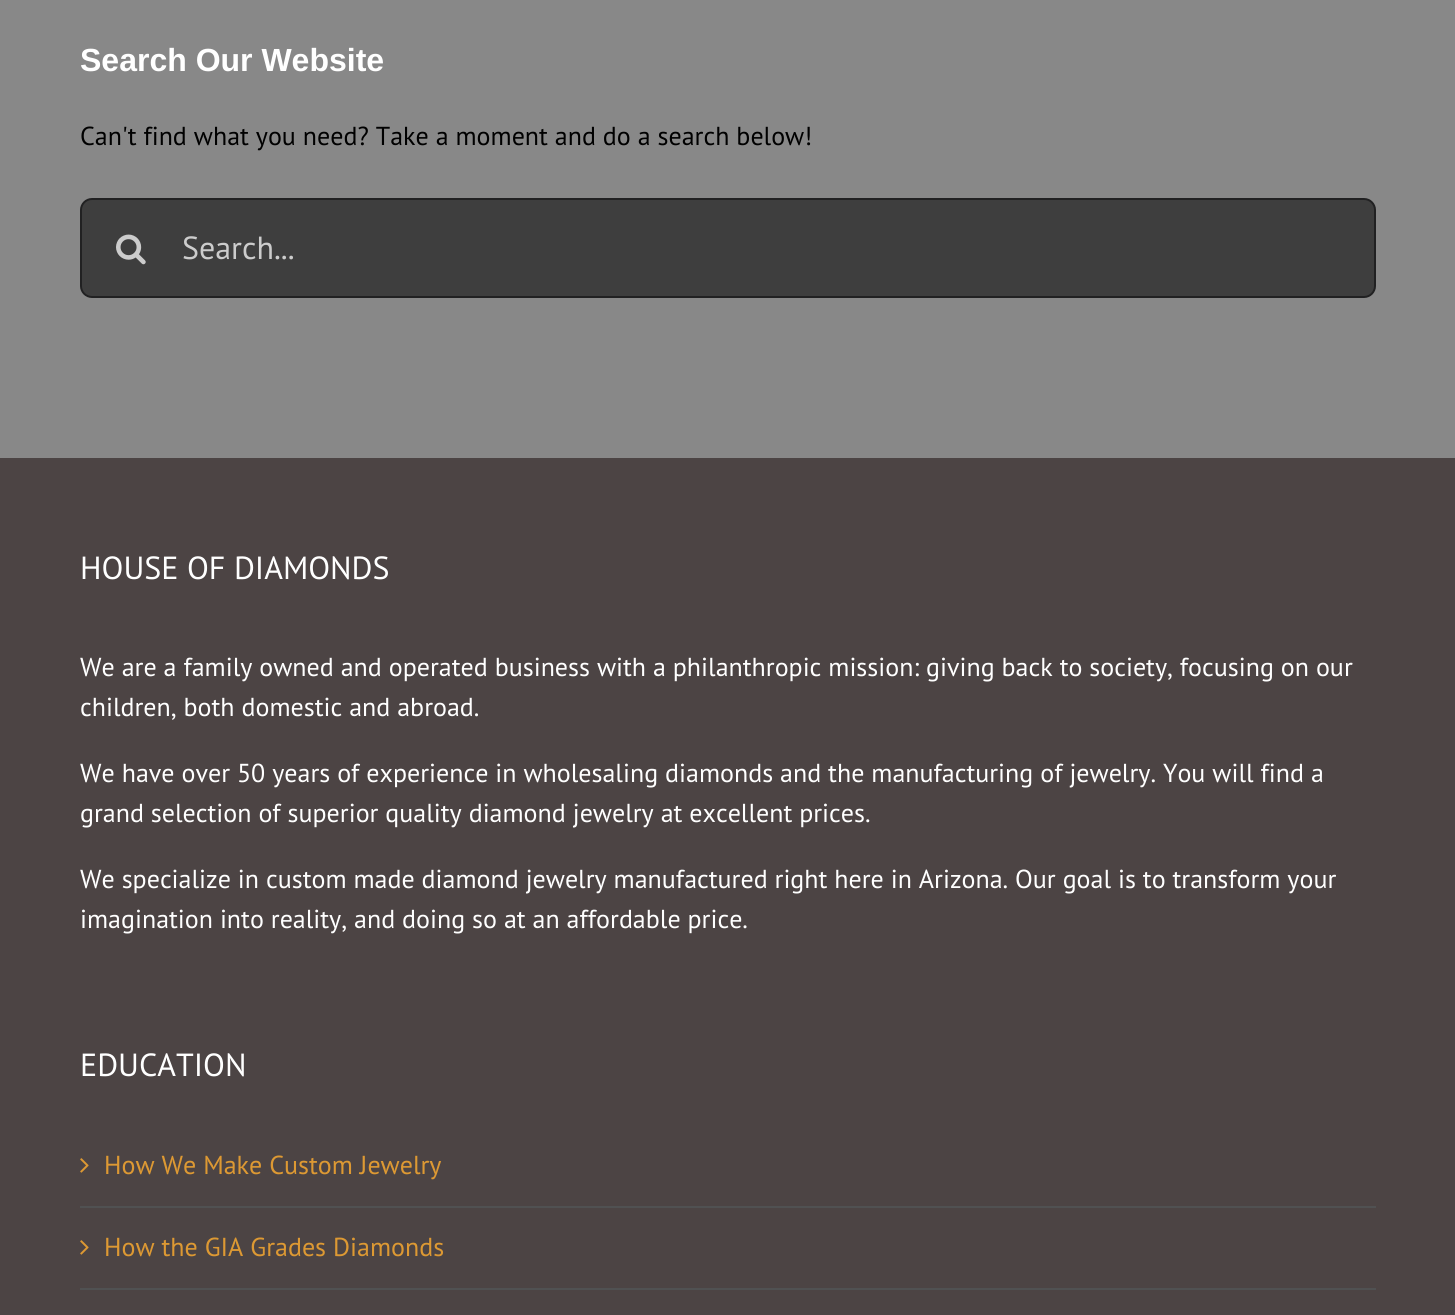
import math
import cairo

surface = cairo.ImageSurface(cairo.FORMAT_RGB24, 1455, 1315)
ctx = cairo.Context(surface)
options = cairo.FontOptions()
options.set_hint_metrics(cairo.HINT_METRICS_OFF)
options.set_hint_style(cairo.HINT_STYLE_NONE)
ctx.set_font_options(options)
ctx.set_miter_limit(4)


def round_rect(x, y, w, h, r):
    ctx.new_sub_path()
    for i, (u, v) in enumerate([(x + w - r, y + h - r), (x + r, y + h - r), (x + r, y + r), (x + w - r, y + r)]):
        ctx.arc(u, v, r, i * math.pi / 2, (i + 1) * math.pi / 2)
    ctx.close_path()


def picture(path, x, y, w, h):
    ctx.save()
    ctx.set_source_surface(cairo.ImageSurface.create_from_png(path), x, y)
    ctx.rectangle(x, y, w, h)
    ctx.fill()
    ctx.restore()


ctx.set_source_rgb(0.533, 0.533, 0.533)
ctx.paint()
ctx.select_font_face("Liberation Sans", cairo.FONT_SLANT_NORMAL, cairo.FONT_WEIGHT_BOLD)
ctx.set_font_size(32)
ctx.set_source_rgb(1, 1, 1)
ctx.move_to(80, 71)
ctx.show_text("Search Our Website")
ctx.select_font_face("PT Sans")
ctx.set_font_size(26)
ctx.set_source_rgb(0, 0, 0)
ctx.move_to(80, 145)
ctx.show_text("Can't find what you need? Take a moment and do a search below!")
ctx.set_source_rgb(0.243, 0.243, 0.243)
round_rect(81, 199, 1294, 98, 11)
ctx.fill_preserve()
ctx.set_source_rgb(0.129, 0.129, 0.133)
ctx.stroke()
picture("img1.png", 116, 234, 30, 31)
ctx.set_font_size(32)
ctx.set_source_rgb(0.8, 0.8, 0.8)
ctx.move_to(182, 259)
ctx.show_text("Search...")
ctx.set_source_rgb(0.298, 0.267, 0.267)
ctx.rectangle(0, 458, 1455, 857)
ctx.fill()
ctx.set_source_rgb(1, 1, 1)
ctx.move_to(80, 579)
ctx.show_text("HOUSE OF DIAMONDS")
ctx.set_font_size(26)
ctx.move_to(80, 676)
ctx.show_text("We are a family owned and operated business with a philanthropic mission: giving back to society, focusing on our")
ctx.move_to(80, 716)
ctx.show_text("children, both domestic and abroad.")
ctx.move_to(80, 782)
ctx.show_text("We have over 50 years of experience in wholesaling diamonds and the manufacturing of jewelry. You will find a")
ctx.move_to(80, 822)
ctx.show_text("grand selection of superior quality diamond jewelry at excellent prices.")
ctx.move_to(80, 888)
ctx.show_text("We specialize in custom made diamond jewelry manufactured right here in Arizona. Our goal is to transform your")
ctx.move_to(80, 928)
ctx.show_text("imagination into reality, and doing so at an affordable price.")
ctx.set_font_size(32)
ctx.move_to(80, 1076)
ctx.show_text("EDUCATION")
ctx.set_source_rgb(0.314, 0.318, 0.322)
ctx.rectangle(80, 1206, 1296, 2)
ctx.fill()
picture("img2.png", 80, 1158, 9, 15)
ctx.set_font_size(26)
ctx.set_source_rgb(0.867, 0.6, 0.2)
ctx.move_to(104, 1174)
ctx.show_text("How We Make Custom Jewelry")
ctx.set_source_rgb(0.314, 0.318, 0.322)
ctx.rectangle(80, 1288, 1296, 2)
ctx.fill()
picture("img2.png", 80, 1240, 9, 15)
ctx.set_source_rgb(0.867, 0.6, 0.2)
ctx.move_to(104, 1256)
ctx.show_text("How the GIA Grades Diamonds")
surface.write_to_png("page.png")
